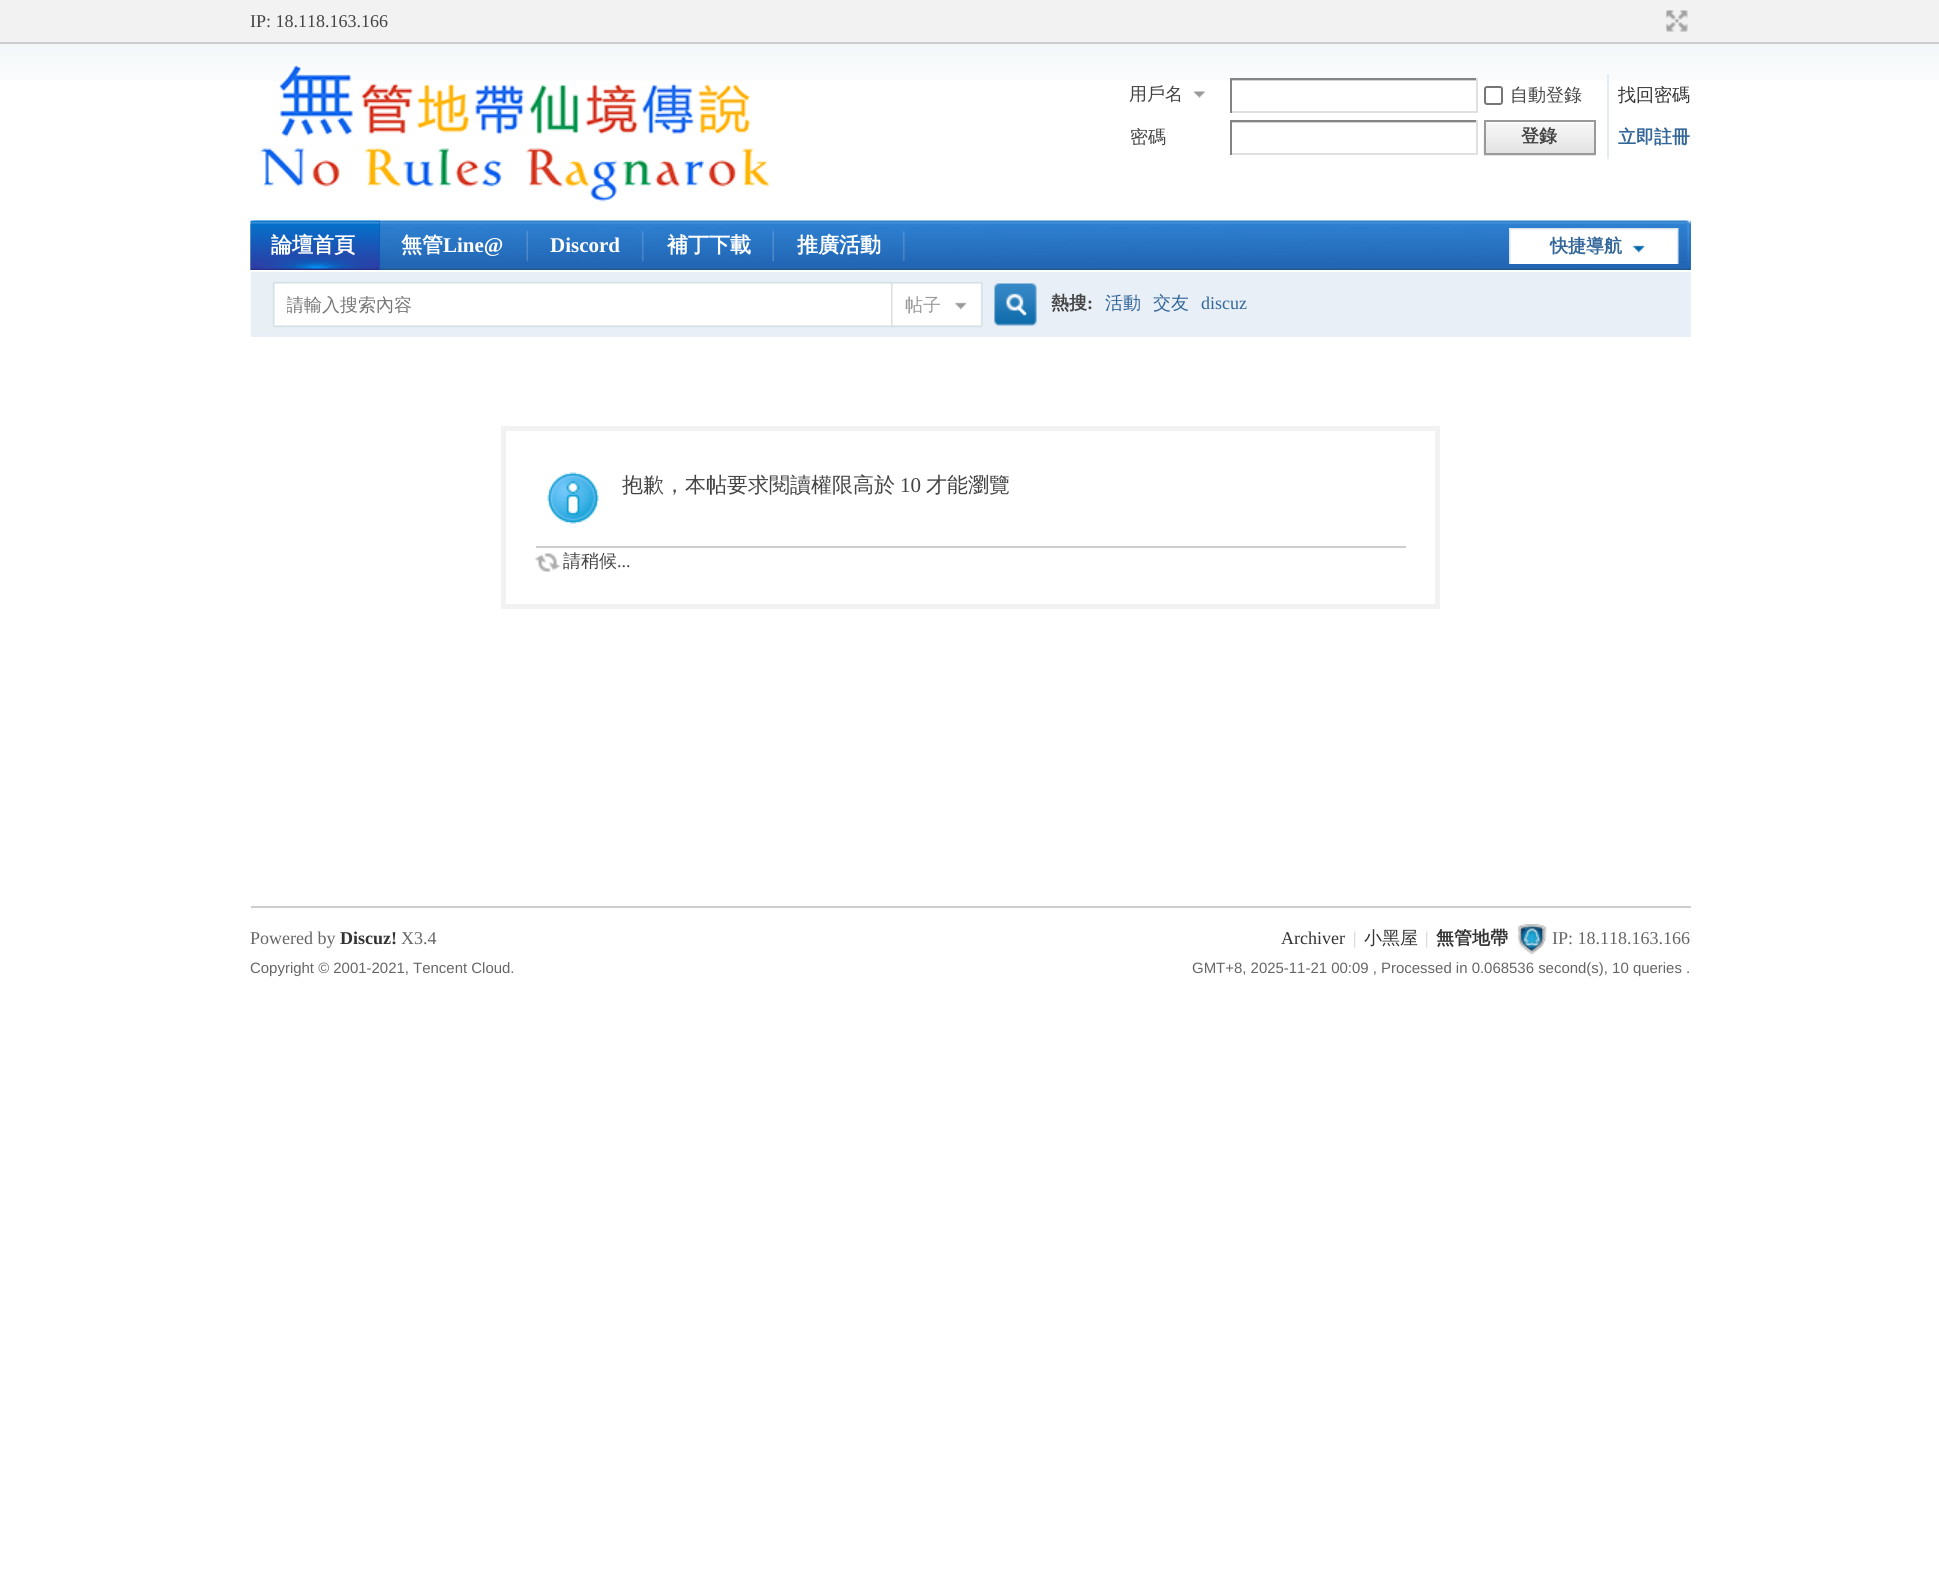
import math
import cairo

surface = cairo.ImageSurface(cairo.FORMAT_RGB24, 1939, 1593)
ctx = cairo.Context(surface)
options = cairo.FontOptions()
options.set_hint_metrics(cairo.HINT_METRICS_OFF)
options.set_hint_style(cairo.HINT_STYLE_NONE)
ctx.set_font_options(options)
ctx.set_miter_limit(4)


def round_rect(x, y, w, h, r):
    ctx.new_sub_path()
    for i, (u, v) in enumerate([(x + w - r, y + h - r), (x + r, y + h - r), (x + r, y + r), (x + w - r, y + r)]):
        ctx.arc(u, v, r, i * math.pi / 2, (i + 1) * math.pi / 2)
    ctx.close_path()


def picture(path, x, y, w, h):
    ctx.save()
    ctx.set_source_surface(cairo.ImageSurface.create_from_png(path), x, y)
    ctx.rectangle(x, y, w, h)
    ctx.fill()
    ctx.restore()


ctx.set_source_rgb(1, 1, 1)
ctx.paint()
picture("img1.png", 0, 44, 1939, 37)
ctx.set_source_rgb(0.949, 0.949, 0.949)
ctx.rectangle(0, 0, 1939, 42)
ctx.fill()
ctx.set_source_rgb(0.804, 0.804, 0.804)
ctx.rectangle(0, 42, 1939, 2)
ctx.fill()
ctx.select_font_face("Liberation Serif")
ctx.set_font_size(18)
ctx.set_source_rgb(0.267, 0.267, 0.267)
ctx.move_to(250, 27)
ctx.show_text("IP: 18.118.163.166")
picture("img2.png", 1665, 10, 23, 22)
picture("img3.png", 259, 64, 511, 138)
picture("img4.png", 1193, 91, 12, 7)
ctx.select_font_face("WenQuanYi Zen Hei Medium")
ctx.move_to(1129, 100)
ctx.show_text("用戶名")
picture("img5.png", 1232, 80, 244, 1)
ctx.set_source_rgb(0.518, 0.518, 0.518)
ctx.rectangle(1230, 78, 248, 2)
ctx.fill()
ctx.set_source_rgb(0.878, 0.878, 0.878)
ctx.rectangle(1476, 78, 2, 35)
ctx.fill()
ctx.rectangle(1230, 111, 248, 2)
ctx.fill()
ctx.set_source_rgb(0.518, 0.518, 0.518)
ctx.rectangle(1230, 78, 2, 35)
ctx.fill()
round_rect(1485, 87, 17, 17, 2)
ctx.set_source_rgb(0.463, 0.463, 0.463)
ctx.stroke()
ctx.set_source_rgb(0.267, 0.267, 0.267)
ctx.move_to(1510, 101)
ctx.show_text("自動登錄")
ctx.set_source_rgb(0.2, 0.2, 0.2)
ctx.move_to(1618, 101)
ctx.show_text("找回密碼")
ctx.set_source_rgb(0.267, 0.267, 0.267)
ctx.move_to(1130, 143)
ctx.show_text("密碼")
picture("img5.png", 1232, 122, 244, 1)
ctx.set_source_rgb(0.518, 0.518, 0.518)
ctx.rectangle(1230, 120, 248, 2)
ctx.fill()
ctx.set_source_rgb(0.878, 0.878, 0.878)
ctx.rectangle(1476, 120, 2, 35)
ctx.fill()
ctx.rectangle(1230, 153, 248, 2)
ctx.fill()
ctx.set_source_rgb(0.518, 0.518, 0.518)
ctx.rectangle(1230, 120, 2, 35)
ctx.fill()
ctx.set_source_rgb(0.898, 0.929, 0.949)
ctx.rectangle(1607, 74, 2, 85)
ctx.fill()
ctx.set_source_rgb(0.898, 0.898, 0.898)
ctx.rectangle(1484, 155, 112, 1)
ctx.fill()
picture("img6.png", 1483, 121, 111, 34)
ctx.rectangle(1485, 121, 110, 33)
ctx.set_source_rgb(0.6, 0.6, 0.6)
ctx.stroke()
ctx.select_font_face("WenQuanYi Zen Hei", cairo.FONT_SLANT_NORMAL, cairo.FONT_WEIGHT_BOLD)
ctx.set_source_rgb(0.267, 0.267, 0.267)
ctx.move_to(1521, 142)
ctx.show_text("登錄")
ctx.set_source_rgb(0.2, 0.4, 0.6)
ctx.move_to(1618, 143)
ctx.show_text("立即註冊")
ctx.set_source_rgb(0.169, 0.478, 0.804)
ctx.rectangle(1690, 221, 1, 49)
ctx.fill()
picture("img7.png", 250, 220, 1441, 50)
ctx.set_source_rgb(0, 0.353, 0.706)
ctx.rectangle(379, 221, 1, 49)
ctx.fill()
picture("img8.png", 250, 220, 130, 50)
ctx.set_font_size(21)
ctx.set_source_rgb(1, 1, 1)
ctx.move_to(271, 252)
ctx.show_text("論壇首頁")
picture("img9.png", 526, 230, 2, 32)
ctx.move_to(401, 252)
ctx.show_text("無管")
ctx.select_font_face("Liberation Serif", cairo.FONT_SLANT_NORMAL, cairo.FONT_WEIGHT_BOLD)
ctx.move_to(443, 252)
ctx.show_text("Line@")
picture("img10.png", 641, 231, 3, 31)
ctx.move_to(550, 252)
ctx.show_text("Discord")
picture("img11.png", 772, 230, 2, 32)
ctx.select_font_face("WenQuanYi Zen Hei", cairo.FONT_SLANT_NORMAL, cairo.FONT_WEIGHT_BOLD)
ctx.move_to(667, 252)
ctx.show_text("補丁下載")
picture("img12.png", 902, 231, 3, 31)
ctx.move_to(797, 252)
ctx.show_text("推廣活動")
picture("img13.png", 1509, 228, 170, 36)
ctx.set_font_size(18)
ctx.set_source_rgb(0.2, 0.4, 0.6)
ctx.move_to(1550, 252)
ctx.show_text("快捷導航")
ctx.set_source_rgb(0.91, 0.937, 0.961)
ctx.rectangle(251, 272, 1440, 63)
ctx.fill()
ctx.set_source_rgb(0.914, 0.937, 0.961)
ctx.rectangle(251, 335, 1440, 2)
ctx.fill()
picture("img14.png", 250, 271, 32, 63)
picture("img15.png", 282, 281, 609, 47)
ctx.save()
ctx.rectangle(287, 294, 600, 26)
ctx.clip()
ctx.select_font_face("WenQuanYi Zen Hei Medium")
ctx.set_source_rgb(0.459, 0.459, 0.459)
ctx.move_to(286, 311)
ctx.show_text("請輸入搜索內容")
ctx.restore()
picture("img16.png", 891, 282, 92, 46)
ctx.select_font_face("WenQuanYi Zen Hei Medium")
ctx.set_source_rgb(0.6, 0.6, 0.6)
ctx.move_to(905, 311)
ctx.show_text("帖子")
picture("img17.png", 994, 283, 43, 43)
ctx.select_font_face("WenQuanYi Zen Hei", cairo.FONT_SLANT_NORMAL, cairo.FONT_WEIGHT_BOLD)
ctx.set_source_rgb(0.267, 0.267, 0.267)
ctx.move_to(1051, 309)
ctx.show_text("熱搜")
ctx.select_font_face("Liberation Serif", cairo.FONT_SLANT_NORMAL, cairo.FONT_WEIGHT_BOLD)
ctx.move_to(1087, 309)
ctx.show_text(":")
ctx.select_font_face("WenQuanYi Zen Hei Medium")
ctx.set_source_rgb(0.2, 0.4, 0.6)
ctx.move_to(1105, 309)
ctx.show_text("活動")
ctx.move_to(1153, 309)
ctx.show_text("交友")
ctx.select_font_face("Liberation Serif")
ctx.move_to(1201, 309)
ctx.show_text("discuz")
ctx.rectangle(503.5, 428.5, 934, 178)
ctx.set_source_rgb(0.949, 0.949, 0.949)
ctx.set_line_width(5)
ctx.stroke()
picture("img18.png", 547, 472, 52, 52)
ctx.select_font_face("WenQuanYi Zen Hei Medium")
ctx.set_font_size(21)
ctx.set_source_rgb(0.267, 0.267, 0.267)
ctx.move_to(622, 492)
ctx.show_text("抱歉，本帖要求閱讀權限高於")
ctx.select_font_face("Liberation Serif")
ctx.move_to(900, 492)
ctx.show_text("10")
ctx.select_font_face("WenQuanYi Zen Hei Medium")
ctx.move_to(926, 492)
ctx.show_text("才能瀏覽")
ctx.set_source_rgb(0.804, 0.804, 0.804)
ctx.rectangle(536, 546, 870, 2)
ctx.fill()
picture("img19.png", 535, 553, 25, 19)
ctx.set_font_size(18)
ctx.set_source_rgb(0.267, 0.267, 0.267)
ctx.move_to(563, 567)
ctx.show_text("請稍候")
ctx.select_font_face("Liberation Serif")
ctx.move_to(617, 567)
ctx.show_text("...")
ctx.set_source_rgb(0.804, 0.804, 0.804)
ctx.rectangle(251, 906, 1440, 2)
ctx.fill()
ctx.set_source_rgb(0.4, 0.4, 0.4)
ctx.move_to(250, 944)
ctx.show_text("Powered by")
ctx.select_font_face("Liberation Serif", cairo.FONT_SLANT_NORMAL, cairo.FONT_WEIGHT_BOLD)
ctx.set_source_rgb(0.2, 0.2, 0.2)
ctx.move_to(340, 944)
ctx.show_text("Discuz!")
ctx.select_font_face("Liberation Serif")
ctx.set_source_rgb(0.4, 0.4, 0.4)
ctx.move_to(401, 944)
ctx.show_text("X3.4")
ctx.select_font_face("Liberation Sans")
ctx.set_font_size(14.95)
ctx.move_to(250, 973)
ctx.show_text("Copyright © 2001-2021, Tencent Cloud.")
ctx.select_font_face("Liberation Serif")
ctx.set_font_size(18)
ctx.set_source_rgb(0.2, 0.2, 0.2)
ctx.move_to(1281, 944)
ctx.show_text("Archiver")
ctx.set_source_rgb(0.8, 0.8, 0.8)
ctx.move_to(1353, 944)
ctx.show_text("|")
ctx.select_font_face("WenQuanYi Zen Hei Medium")
ctx.set_source_rgb(0.2, 0.2, 0.2)
ctx.move_to(1364, 944)
ctx.show_text("小黑屋")
ctx.select_font_face("Liberation Serif")
ctx.set_source_rgb(0.8, 0.8, 0.8)
ctx.move_to(1425, 944)
ctx.show_text("|")
ctx.select_font_face("WenQuanYi Zen Hei", cairo.FONT_SLANT_NORMAL, cairo.FONT_WEIGHT_BOLD)
ctx.set_source_rgb(0.2, 0.2, 0.2)
ctx.move_to(1436, 944)
ctx.show_text("無管地帶")
picture("img20.png", 1517, 924, 30, 30)
ctx.select_font_face("Liberation Serif")
ctx.set_source_rgb(0.4, 0.4, 0.4)
ctx.move_to(1552, 944)
ctx.show_text("IP: 18.118.163.166")
ctx.select_font_face("Liberation Sans")
ctx.set_font_size(14.95)
ctx.move_to(1192, 973)
ctx.show_text("GMT+8, 2025-11-21 00:09 , Processed in 0.068536 second(s), 10 queries .")
surface.write_to_png("page.png")
